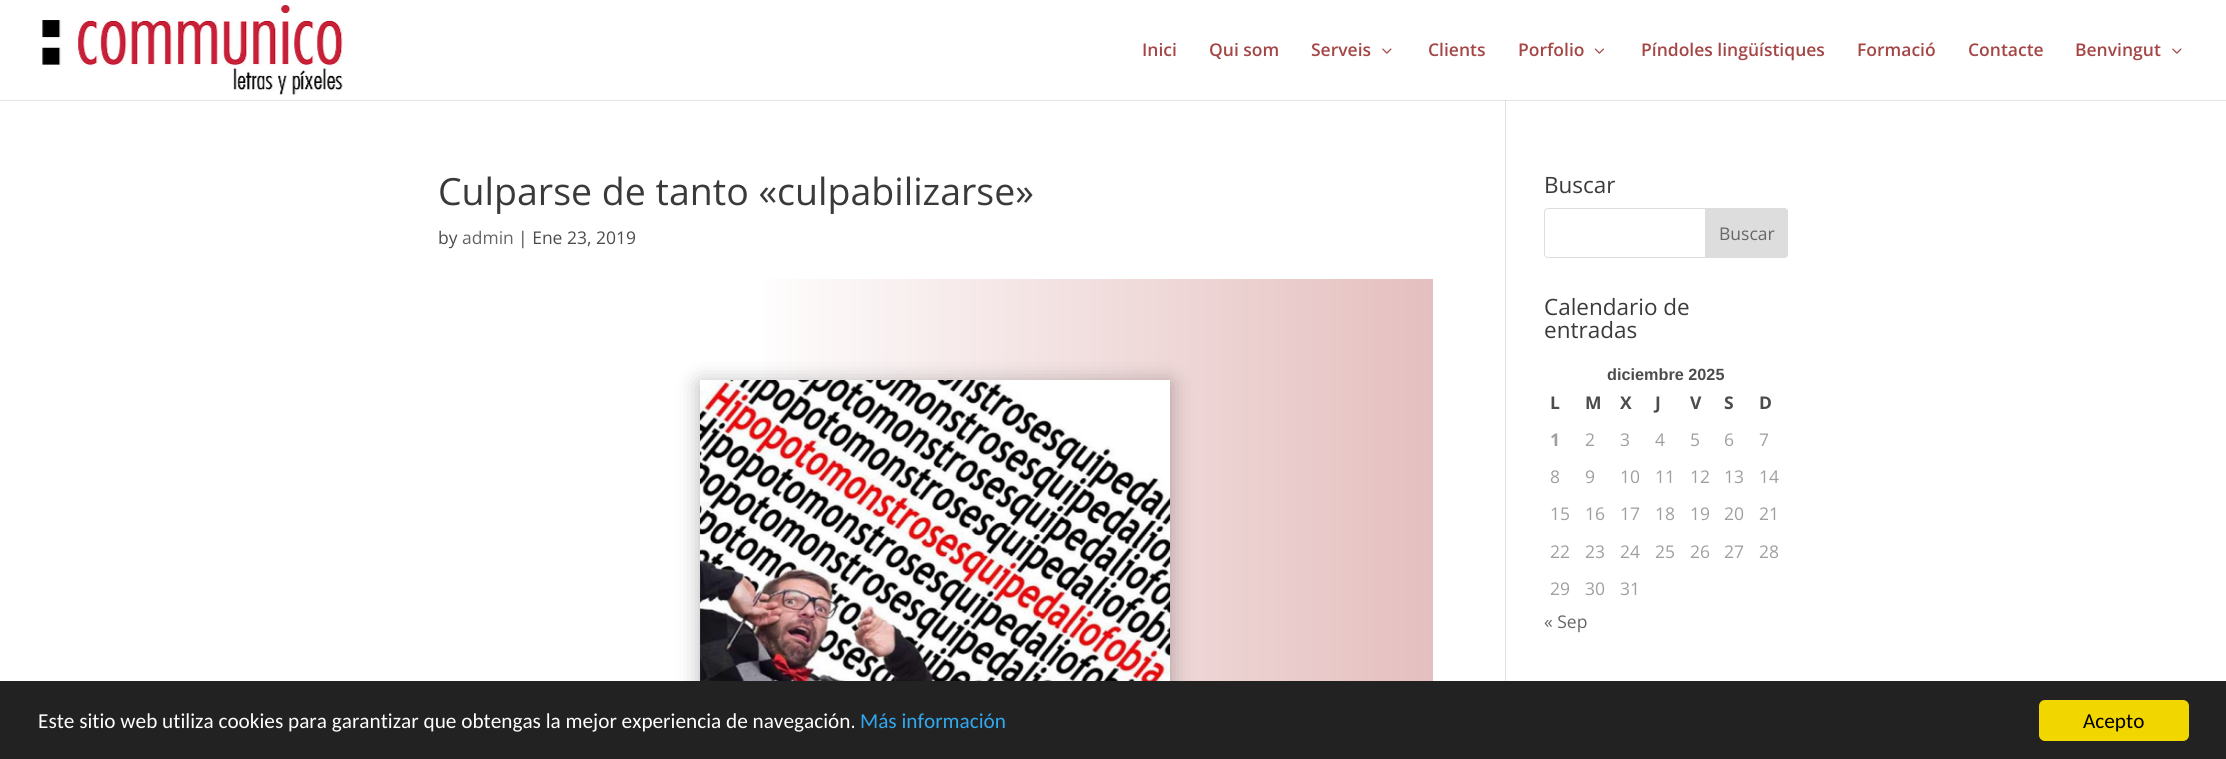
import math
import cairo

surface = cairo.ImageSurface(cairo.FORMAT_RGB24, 2226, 759)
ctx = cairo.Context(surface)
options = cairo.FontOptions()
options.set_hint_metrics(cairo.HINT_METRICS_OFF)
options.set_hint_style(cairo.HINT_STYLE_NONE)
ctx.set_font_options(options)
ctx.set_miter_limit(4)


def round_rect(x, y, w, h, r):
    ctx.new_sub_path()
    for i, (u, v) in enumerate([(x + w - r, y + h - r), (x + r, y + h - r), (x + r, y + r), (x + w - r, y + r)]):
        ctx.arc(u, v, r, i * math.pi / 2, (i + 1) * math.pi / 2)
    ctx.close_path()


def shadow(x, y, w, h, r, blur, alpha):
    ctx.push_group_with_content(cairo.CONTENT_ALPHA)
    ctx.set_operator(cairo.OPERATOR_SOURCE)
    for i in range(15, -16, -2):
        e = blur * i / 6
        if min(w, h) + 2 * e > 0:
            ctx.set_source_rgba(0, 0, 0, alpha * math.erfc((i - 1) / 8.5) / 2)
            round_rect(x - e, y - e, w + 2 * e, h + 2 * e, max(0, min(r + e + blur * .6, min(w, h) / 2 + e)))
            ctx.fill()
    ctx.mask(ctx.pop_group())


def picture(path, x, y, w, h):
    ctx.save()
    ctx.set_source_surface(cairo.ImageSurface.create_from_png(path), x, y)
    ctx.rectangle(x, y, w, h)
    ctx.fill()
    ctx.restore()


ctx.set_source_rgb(1, 1, 1)
ctx.paint()
ctx.set_source_rgb(0.902, 0.902, 0.902)
ctx.rectangle(0, 100, 2226, 1)
ctx.fill()
picture("img1.png", 42, 5, 301, 90)
ctx.select_font_face("Open Sans SemiBold")
ctx.set_font_size(17.5)
ctx.set_source_rgb(0.647, 0.275, 0.275)
ctx.move_to(1142, 56)
ctx.show_text("Inici")
ctx.move_to(1209, 56)
ctx.show_text("Qui som")
ctx.move_to(1311, 56)
ctx.show_text("Serveis")
picture("img2.png", 1382, 48, 10, 6)
ctx.move_to(1428, 56)
ctx.show_text("Clients")
ctx.move_to(1518, 56)
ctx.show_text("Porfolio")
picture("img3.png", 1594, 48, 10, 6)
ctx.move_to(1641, 56)
ctx.show_text("Píndoles lingüístiques")
ctx.move_to(1857, 56)
ctx.show_text("Formació")
ctx.move_to(1968, 56)
ctx.show_text("Contacte")
ctx.move_to(2075, 56)
ctx.show_text("Benvingut")
picture("img2.png", 2172, 48, 10, 6)
ctx.set_source_rgb(0.886, 0.886, 0.886)
ctx.rectangle(1505, 100, 1, 581)
ctx.fill()
ctx.set_source_rgb(0.796, 0.796, 0.796)
ctx.rectangle(1505, 100, 1, 1)
ctx.fill()
ctx.select_font_face("Open Sans")
ctx.set_font_size(37.5)
ctx.set_source_rgb(0.227, 0.227, 0.227)
ctx.move_to(438, 205)
ctx.show_text("Culparse de tanto «culpabilizarse»")
ctx.set_font_size(17.5)
ctx.set_source_rgb(0.298, 0.298, 0.298)
ctx.move_to(438, 244)
ctx.show_text("by")
ctx.set_source_rgb(0.4, 0.4, 0.4)
ctx.move_to(462, 244)
ctx.show_text("admin")
ctx.set_source_rgb(0.298, 0.298, 0.298)
ctx.move_to(518, 244)
ctx.show_text("| Ene 23, 2019")
gradient = cairo.LinearGradient(1433, 731, 439, 731)
gradient.add_color_stop_rgba(0, 0.898, 0.749, 0.749, 1)
gradient.add_color_stop_rgba(0.7, 1, 1, 1, 1)
ctx.set_source(gradient)
ctx.rectangle(764, 279, 669, 402)
ctx.fill()
ctx.set_source_rgb(0, 0, 0)
shadow(700, 383, 470, 308, 0, 11, 0.3)
picture("img4.png", 700, 380, 470, 301)
ctx.set_font_size(22.5)
ctx.set_source_rgb(0.227, 0.227, 0.227)
ctx.move_to(1544, 193)
ctx.show_text("Buscar")
round_rect(1544.5, 208.5, 243, 49, 3.5)
ctx.set_source_rgb(0.867, 0.867, 0.867)
ctx.set_line_width(1)
ctx.stroke()
ctx.new_path()
ctx.move_to(1705.5, 208.5)
ctx.line_to(1784, 208.5)
ctx.curve_to(1786, 208.5, 1787.5, 210, 1787.5, 212)
ctx.line_to(1787.5, 254)
ctx.curve_to(1787.5, 256, 1786, 257.5, 1784, 257.5)
ctx.line_to(1705.5, 257.5)
ctx.close_path()
ctx.fill_preserve()
ctx.stroke()
ctx.set_font_size(17.5)
ctx.set_source_rgb(0.4, 0.4, 0.4)
ctx.move_to(1719, 240)
ctx.show_text("Buscar")
ctx.set_font_size(22.5)
ctx.set_source_rgb(0.227, 0.227, 0.227)
ctx.move_to(1544, 315)
ctx.show_text("Calendario de")
ctx.move_to(1544, 338)
ctx.show_text("entradas")
ctx.select_font_face("Liberation Sans", cairo.FONT_SLANT_NORMAL, cairo.FONT_WEIGHT_BOLD)
ctx.set_font_size(16.25)
ctx.set_source_rgb(0.298, 0.298, 0.298)
ctx.move_to(1607, 380)
ctx.show_text("diciembre 2025")
ctx.select_font_face("Open Sans", cairo.FONT_SLANT_NORMAL, cairo.FONT_WEIGHT_BOLD)
ctx.set_font_size(17.5)
ctx.move_to(1550, 409)
ctx.show_text("L")
ctx.move_to(1585, 409)
ctx.show_text("M")
ctx.move_to(1620, 409)
ctx.show_text("X")
ctx.move_to(1655, 409)
ctx.show_text("J")
ctx.move_to(1690, 409)
ctx.show_text("V")
ctx.move_to(1724, 409)
ctx.show_text("S")
ctx.move_to(1759, 409)
ctx.show_text("D")
ctx.set_source_rgb(0.624, 0.624, 0.624)
ctx.move_to(1550, 446)
ctx.show_text("1")
ctx.select_font_face("Open Sans")
ctx.move_to(1585, 446)
ctx.show_text("2")
ctx.move_to(1620, 446)
ctx.show_text("3")
ctx.move_to(1655, 446)
ctx.show_text("4")
ctx.move_to(1690, 446)
ctx.show_text("5")
ctx.move_to(1724, 446)
ctx.show_text("6")
ctx.move_to(1759, 446)
ctx.show_text("7")
ctx.move_to(1550, 483)
ctx.show_text("8")
ctx.move_to(1585, 483)
ctx.show_text("9")
ctx.move_to(1620, 483)
ctx.show_text("10")
ctx.move_to(1655, 483)
ctx.show_text("11")
ctx.move_to(1690, 483)
ctx.show_text("12")
ctx.move_to(1724, 483)
ctx.show_text("13")
ctx.move_to(1759, 483)
ctx.show_text("14")
ctx.move_to(1550, 520)
ctx.show_text("15")
ctx.move_to(1585, 520)
ctx.show_text("16")
ctx.move_to(1620, 520)
ctx.show_text("17")
ctx.move_to(1655, 520)
ctx.show_text("18")
ctx.move_to(1690, 520)
ctx.show_text("19")
ctx.move_to(1724, 520)
ctx.show_text("20")
ctx.move_to(1759, 520)
ctx.show_text("21")
ctx.move_to(1550, 558)
ctx.show_text("22")
ctx.move_to(1585, 558)
ctx.show_text("23")
ctx.move_to(1620, 558)
ctx.show_text("24")
ctx.move_to(1655, 558)
ctx.show_text("25")
ctx.move_to(1690, 558)
ctx.show_text("26")
ctx.move_to(1724, 558)
ctx.show_text("27")
ctx.move_to(1759, 558)
ctx.show_text("28")
ctx.move_to(1550, 595)
ctx.show_text("29")
ctx.move_to(1585, 595)
ctx.show_text("30")
ctx.move_to(1620, 595)
ctx.show_text("31")
ctx.set_source_rgb(0.4, 0.4, 0.4)
ctx.move_to(1544, 628)
ctx.show_text("« Sep")
ctx.set_source_rgb(0.133, 0.133, 0.133)
ctx.rectangle(0, 681, 2226, 78)
ctx.fill()
ctx.select_font_face("Carlito")
ctx.set_font_size(21.25)
ctx.set_source_rgb(1, 1, 1)
ctx.move_to(38, 728)
ctx.show_text("Este sitio web utiliza cookies para garantizar que obtengas la mejor experiencia de navegación.")
ctx.set_source_rgb(0.192, 0.659, 0.941)
ctx.move_to(860, 728)
ctx.show_text("Más información")
ctx.set_source_rgb(0.945, 0.839, 0)
round_rect(2039, 700, 150, 41, 6)
ctx.fill()
ctx.set_source_rgb(0, 0, 0)
ctx.move_to(2083, 728)
ctx.show_text("Acepto")
surface.write_to_png("page.png")
